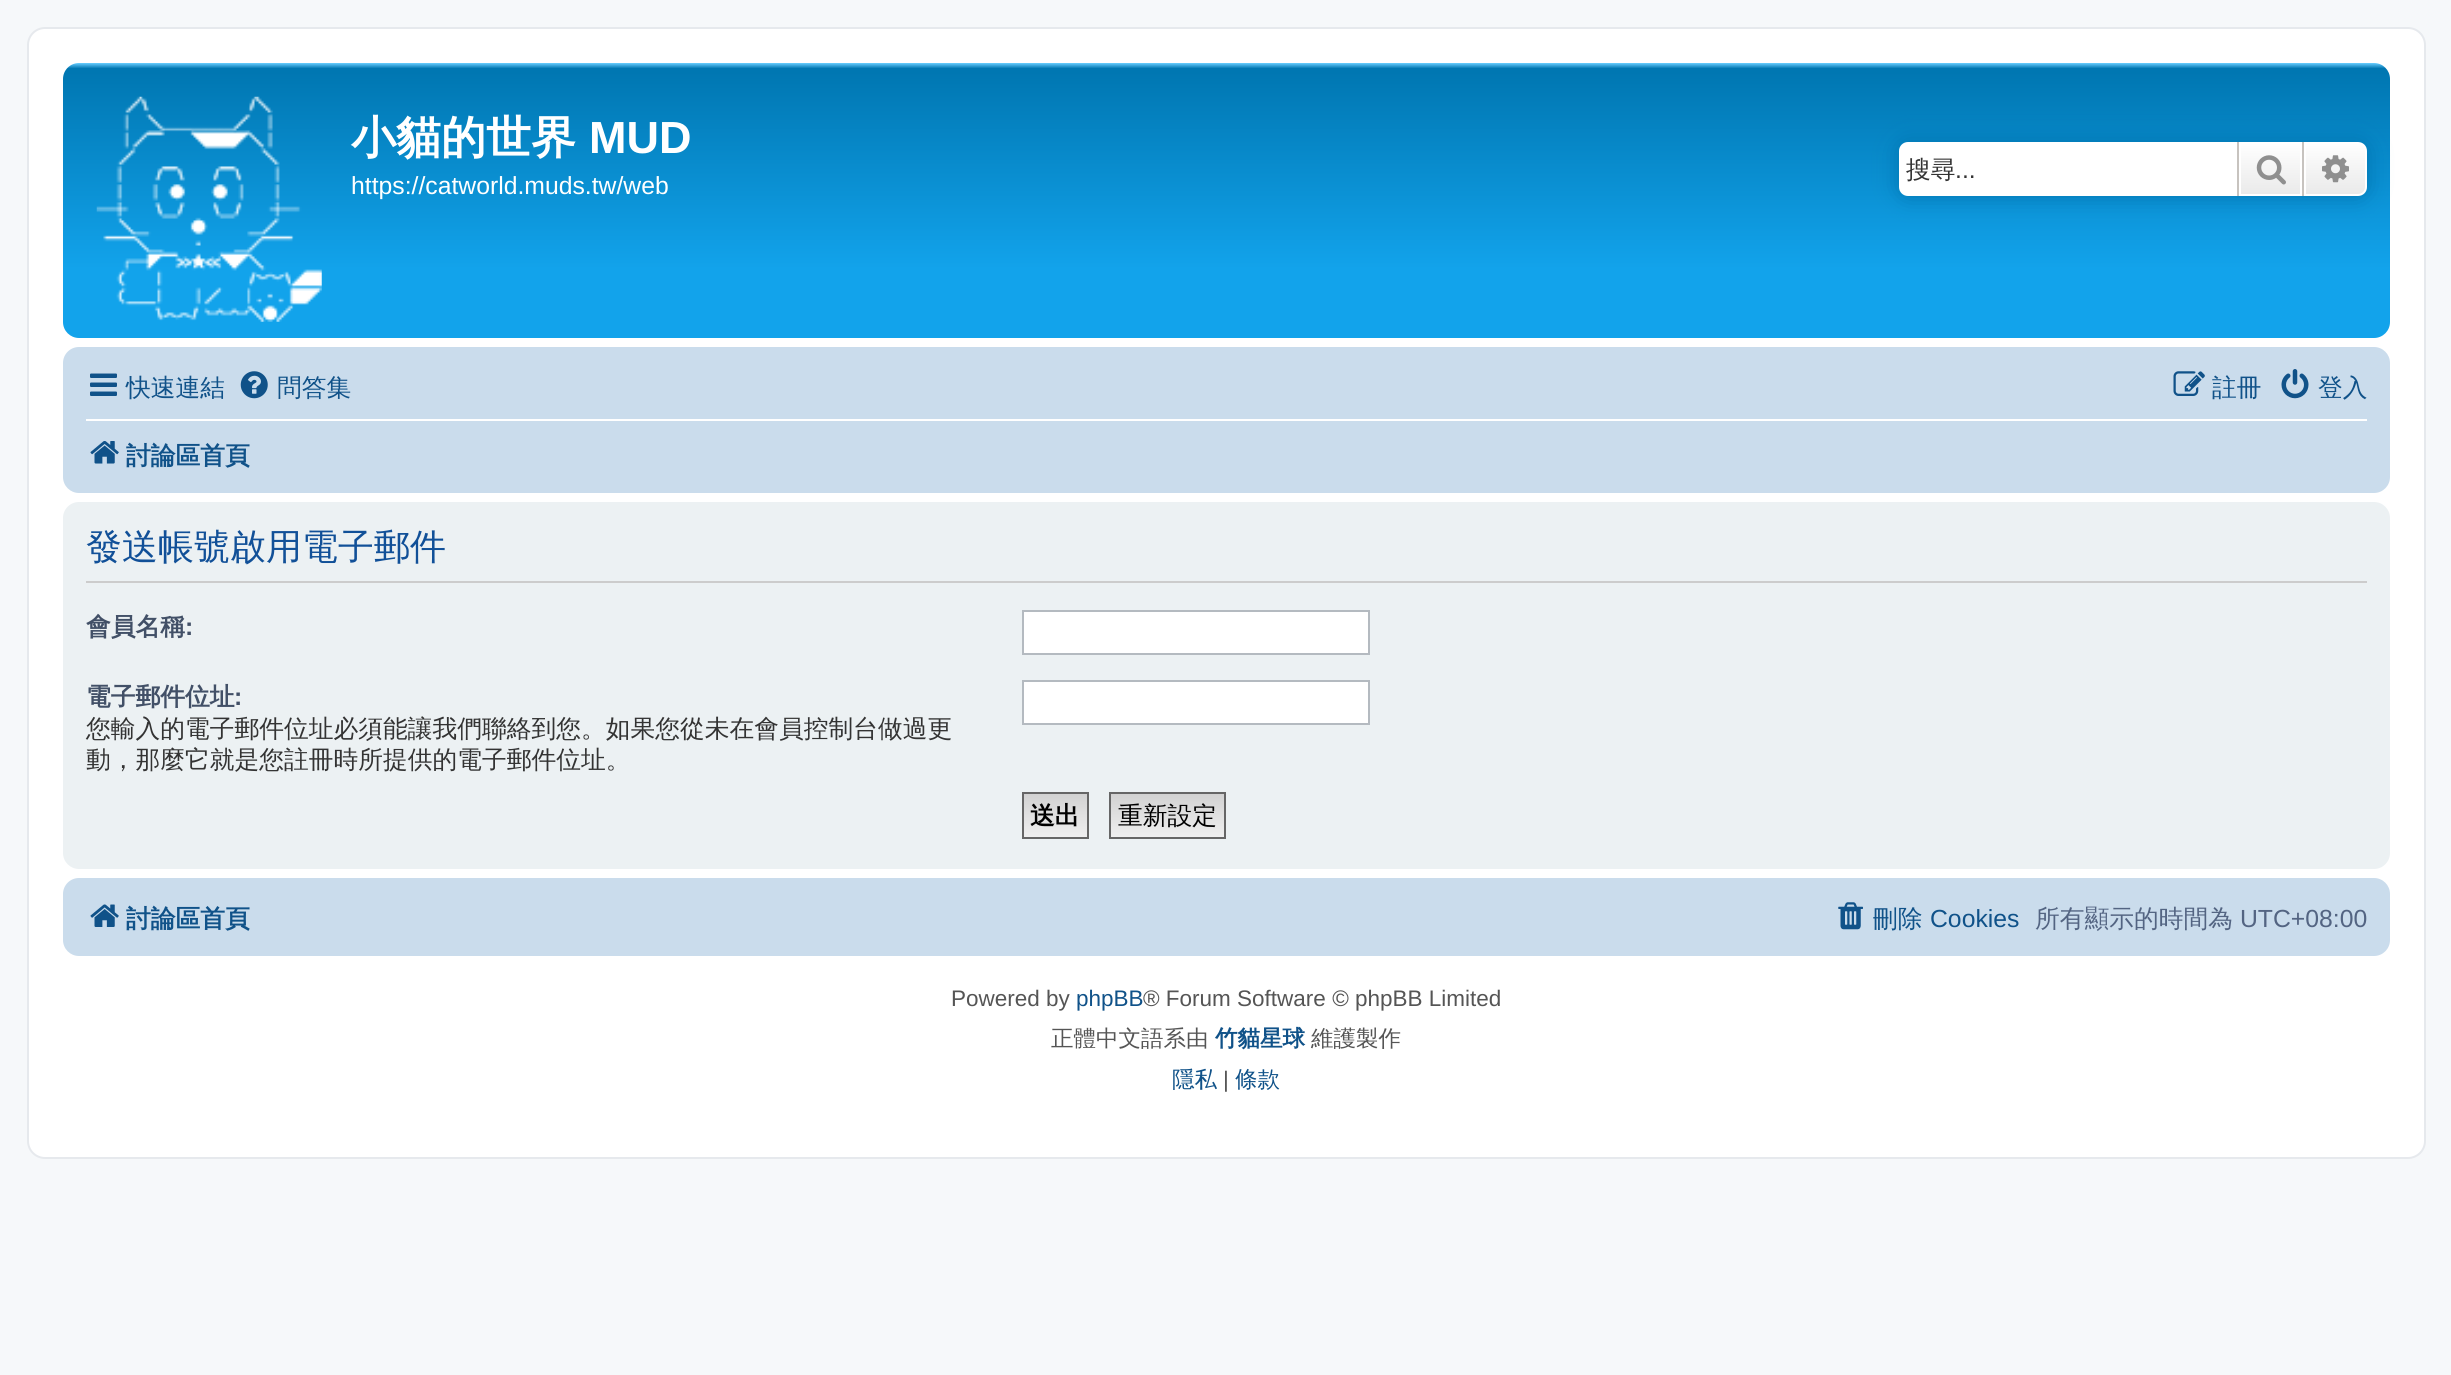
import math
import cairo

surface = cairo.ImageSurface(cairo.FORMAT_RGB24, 2451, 1375)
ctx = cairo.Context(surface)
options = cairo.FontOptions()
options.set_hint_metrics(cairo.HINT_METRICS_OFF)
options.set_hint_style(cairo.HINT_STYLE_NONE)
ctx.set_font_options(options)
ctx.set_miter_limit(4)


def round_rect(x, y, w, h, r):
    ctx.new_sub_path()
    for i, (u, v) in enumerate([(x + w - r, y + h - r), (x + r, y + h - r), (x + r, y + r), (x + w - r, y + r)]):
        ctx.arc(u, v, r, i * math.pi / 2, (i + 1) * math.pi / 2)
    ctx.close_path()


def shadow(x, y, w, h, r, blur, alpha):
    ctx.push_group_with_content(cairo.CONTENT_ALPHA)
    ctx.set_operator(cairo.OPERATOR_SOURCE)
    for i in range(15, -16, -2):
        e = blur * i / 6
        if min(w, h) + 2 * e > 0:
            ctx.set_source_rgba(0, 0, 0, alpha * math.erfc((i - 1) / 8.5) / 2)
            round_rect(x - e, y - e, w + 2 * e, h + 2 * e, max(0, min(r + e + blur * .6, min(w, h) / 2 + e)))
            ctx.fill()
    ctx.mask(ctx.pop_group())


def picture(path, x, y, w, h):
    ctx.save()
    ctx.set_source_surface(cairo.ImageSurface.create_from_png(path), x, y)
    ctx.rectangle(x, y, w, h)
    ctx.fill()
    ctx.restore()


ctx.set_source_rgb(0.961, 0.969, 0.98)
ctx.paint()
ctx.set_source_rgb(1, 1, 1)
round_rect(28, 28, 2397, 1130, 17)
ctx.fill_preserve()
ctx.set_source_rgb(0.902, 0.914, 0.929)
ctx.stroke()
gradient = cairo.LinearGradient(1226, 63, 1226, 338)
gradient.add_color_stop_rgba(0, 0.416, 0.808, 1, 1)
gradient.add_color_stop_rgba(0.02, 0, 0.463, 0.694, 1)
gradient.add_color_stop_rgba(0.75, 0.071, 0.639, 0.922, 1)
gradient.add_color_stop_rgba(1, 0.071, 0.639, 0.922, 1)
ctx.set_source(gradient)
round_rect(63, 63, 2327, 275, 16)
ctx.fill()
picture("img1.png", 96, 96, 226, 226)
ctx.select_font_face("WenQuanYi Zen Hei", cairo.FONT_SLANT_NORMAL, cairo.FONT_WEIGHT_BOLD)
ctx.set_font_size(45)
ctx.set_source_rgb(1, 1, 1)
ctx.move_to(351, 153)
ctx.show_text("小貓的世界")
ctx.select_font_face("Liberation Sans", cairo.FONT_SLANT_NORMAL, cairo.FONT_WEIGHT_BOLD)
ctx.move_to(589, 153)
ctx.show_text("MUD")
ctx.select_font_face("Liberation Sans")
ctx.set_font_size(24.75)
ctx.move_to(351, 194)
ctx.show_text("https://catworld.muds.tw/web")
ctx.set_source_rgb(0, 0.459, 0.69)
shadow(1899, 142, 468, 54, 9, 11, 1)
ctx.set_source_rgb(1, 1, 1)
ctx.new_path()
ctx.move_to(1908, 142)
ctx.line_to(2237, 142)
ctx.line_to(2237, 196)
ctx.line_to(1908, 196)
ctx.curve_to(1903, 196, 1899, 192, 1899, 187)
ctx.line_to(1899, 151)
ctx.curve_to(1899, 146, 1903, 142, 1908, 142)
ctx.close_path()
ctx.fill()
ctx.select_font_face("WenQuanYi Zen Hei Medium")
ctx.set_source_rgb(0.2, 0.2, 0.2)
ctx.move_to(1906, 178)
ctx.show_text("搜尋")
ctx.select_font_face("Liberation Sans")
ctx.move_to(1955, 178)
ctx.show_text("...")
gradient = cairo.LinearGradient(2270, 142, 2270, 196)
gradient.add_color_stop_rgba(0, 1, 1, 1, 1)
gradient.add_color_stop_rgba(1, 0.914, 0.914, 0.914, 1)
ctx.set_source(gradient)
ctx.rectangle(2241, 144, 59, 50)
ctx.fill()
ctx.rectangle(2240, 143, 61, 52)
ctx.set_source_rgb(1, 1, 1)
ctx.stroke()
ctx.set_source_rgb(0.78, 0.765, 0.749)
ctx.rectangle(2302, 142, 2, 54)
ctx.fill()
ctx.rectangle(2237, 142, 2, 54)
ctx.fill()
picture("img2.png", 2256, 155, 30, 30)
gradient = cairo.LinearGradient(2336, 142, 2336, 196)
gradient.add_color_stop_rgba(0, 1, 1, 1, 1)
gradient.add_color_stop_rgba(1, 0.914, 0.914, 0.914, 1)
ctx.set_source(gradient)
ctx.new_path()
ctx.move_to(2305, 143)
ctx.line_to(2358, 143)
ctx.curve_to(2362.5, 143, 2366, 146.5, 2366, 151)
ctx.line_to(2366, 187)
ctx.curve_to(2366, 191.5, 2362.5, 195, 2358, 195)
ctx.line_to(2305, 195)
ctx.close_path()
ctx.fill_preserve()
ctx.set_source_rgb(1, 1, 1)
ctx.stroke()
picture("img3.png", 2322, 155, 27, 28)
ctx.set_source_rgb(0.792, 0.863, 0.922)
round_rect(63, 347, 2327, 146, 16)
ctx.fill()
picture("img4.png", 90, 373, 27, 23)
ctx.select_font_face("WenQuanYi Zen Hei Medium")
ctx.set_source_rgb(0.063, 0.322, 0.537)
ctx.move_to(126, 396)
ctx.show_text("快速連結")
picture("img5.png", 240, 371, 28, 28)
ctx.move_to(277, 396)
ctx.show_text("問答集")
picture("img6.png", 2173, 371, 32, 25)
ctx.move_to(2212, 396)
ctx.show_text("註冊")
picture("img7.png", 2281, 369, 28, 30)
ctx.move_to(2318, 396)
ctx.show_text("登入")
ctx.set_source_rgb(1, 1, 1)
ctx.rectangle(86, 419, 2281, 2)
ctx.fill()
picture("img8.png", 90, 441, 29, 23)
ctx.select_font_face("WenQuanYi Zen Hei", cairo.FONT_SLANT_NORMAL, cairo.FONT_WEIGHT_BOLD)
ctx.set_source_rgb(0.063, 0.322, 0.537)
ctx.move_to(126, 464)
ctx.show_text("討論區首頁")
ctx.set_source_rgb(0.925, 0.945, 0.953)
round_rect(63, 502, 2327, 367, 16)
ctx.fill()
ctx.set_source_rgb(0.8, 0.8, 0.8)
ctx.rectangle(86, 581, 2281, 2)
ctx.fill()
ctx.select_font_face("WenQuanYi Zen Hei Medium")
ctx.set_font_size(36)
ctx.set_source_rgb(0.067, 0.314, 0.596)
ctx.move_to(86, 559)
ctx.show_text("發送帳號啟用電子郵件")
ctx.select_font_face("WenQuanYi Zen Hei", cairo.FONT_SLANT_NORMAL, cairo.FONT_WEIGHT_BOLD)
ctx.set_font_size(24.75)
ctx.set_source_rgb(0.259, 0.314, 0.404)
ctx.move_to(86, 635)
ctx.show_text("會員名稱")
ctx.select_font_face("Liberation Sans", cairo.FONT_SLANT_NORMAL, cairo.FONT_WEIGHT_BOLD)
ctx.move_to(185, 635)
ctx.show_text(":")
ctx.set_source_rgb(1, 1, 1)
ctx.rectangle(1023, 611, 346, 43)
ctx.fill_preserve()
ctx.set_source_rgb(0.706, 0.729, 0.753)
ctx.stroke()
ctx.select_font_face("WenQuanYi Zen Hei", cairo.FONT_SLANT_NORMAL, cairo.FONT_WEIGHT_BOLD)
ctx.set_source_rgb(0.259, 0.314, 0.404)
ctx.move_to(86, 705)
ctx.show_text("電子郵件位址")
ctx.select_font_face("Liberation Sans", cairo.FONT_SLANT_NORMAL, cairo.FONT_WEIGHT_BOLD)
ctx.move_to(234, 705)
ctx.show_text(":")
ctx.select_font_face("WenQuanYi Zen Hei Medium")
ctx.set_source_rgb(0.2, 0.2, 0.2)
ctx.move_to(86, 737)
ctx.show_text("您輸入的電子郵件位址必須能讓我們聯絡到您。如果您從未在會員控制台做過更")
ctx.move_to(86, 768)
ctx.show_text("動，那麼它就是您註冊時所提供的電子郵件位址。")
ctx.set_source_rgb(1, 1, 1)
ctx.rectangle(1023, 681, 346, 43)
ctx.fill_preserve()
ctx.set_source_rgb(0.706, 0.729, 0.753)
ctx.stroke()
gradient = cairo.LinearGradient(1055, 794, 1055, 837)
gradient.add_color_stop_rgba(0, 0.824, 0.824, 0.824, 1)
gradient.add_color_stop_rgba(1, 0.937, 0.937, 0.937, 1)
ctx.set_source(gradient)
ctx.rectangle(1024, 794, 63, 43)
ctx.fill()
ctx.rectangle(1023, 793, 65, 45)
ctx.set_source_rgb(0.4, 0.4, 0.4)
ctx.stroke()
ctx.select_font_face("WenQuanYi Zen Hei", cairo.FONT_SLANT_NORMAL, cairo.FONT_WEIGHT_BOLD)
ctx.set_source_rgb(0, 0, 0)
ctx.move_to(1030, 824)
ctx.show_text("送出")
gradient = cairo.LinearGradient(1168, 794, 1168, 837)
gradient.add_color_stop_rgba(0, 0.824, 0.824, 0.824, 1)
gradient.add_color_stop_rgba(1, 0.937, 0.937, 0.937, 1)
ctx.set_source(gradient)
ctx.rectangle(1111, 794, 113, 43)
ctx.fill()
ctx.rectangle(1110, 793, 115, 45)
ctx.set_source_rgb(0.4, 0.4, 0.4)
ctx.stroke()
ctx.select_font_face("WenQuanYi Zen Hei Medium")
ctx.set_source_rgb(0, 0, 0)
ctx.move_to(1118, 824)
ctx.show_text("重新設定")
ctx.set_source_rgb(0.792, 0.863, 0.922)
round_rect(63, 878, 2327, 78, 16)
ctx.fill()
picture("img9.png", 90, 904, 29, 23)
ctx.select_font_face("WenQuanYi Zen Hei", cairo.FONT_SLANT_NORMAL, cairo.FONT_WEIGHT_BOLD)
ctx.set_source_rgb(0.063, 0.322, 0.537)
ctx.move_to(126, 927)
ctx.show_text("討論區首頁")
picture("img10.png", 1838, 902, 25, 28)
ctx.select_font_face("WenQuanYi Zen Hei Medium")
ctx.move_to(1873, 927)
ctx.show_text("刪除")
ctx.select_font_face("Liberation Sans")
ctx.move_to(1930, 927)
ctx.show_text("Cookies")
ctx.select_font_face("WenQuanYi Zen Hei Medium")
ctx.set_source_rgb(0.325, 0.392, 0.51)
ctx.move_to(2035, 927)
ctx.show_text("所有顯示的時間為")
ctx.select_font_face("Liberation Sans")
ctx.move_to(2240, 927)
ctx.show_text("UTC+08:00")
ctx.set_font_size(22.5)
ctx.set_source_rgb(0.333, 0.333, 0.333)
ctx.move_to(951, 1006)
ctx.show_text("Powered by")
ctx.set_source_rgb(0.063, 0.322, 0.537)
ctx.move_to(1076, 1006)
ctx.show_text("phpBB")
ctx.set_source_rgb(0.333, 0.333, 0.333)
ctx.move_to(1143, 1006)
ctx.show_text("® Forum Software © phpBB Limited")
ctx.select_font_face("WenQuanYi Zen Hei Medium")
ctx.move_to(1051, 1046)
ctx.show_text("正體中文語系由")
ctx.select_font_face("WenQuanYi Zen Hei", cairo.FONT_SLANT_NORMAL, cairo.FONT_WEIGHT_BOLD)
ctx.set_source_rgb(0.063, 0.322, 0.537)
ctx.move_to(1215, 1046)
ctx.show_text("竹貓星球")
ctx.select_font_face("WenQuanYi Zen Hei Medium")
ctx.set_source_rgb(0.333, 0.333, 0.333)
ctx.move_to(1311, 1046)
ctx.show_text("維護製作")
ctx.set_source_rgb(0.063, 0.322, 0.537)
ctx.move_to(1172, 1087)
ctx.show_text("隱私")
ctx.select_font_face("Liberation Sans")
ctx.set_source_rgb(0.333, 0.333, 0.333)
ctx.move_to(1223, 1087)
ctx.show_text("|")
ctx.select_font_face("WenQuanYi Zen Hei Medium")
ctx.set_source_rgb(0.063, 0.322, 0.537)
ctx.move_to(1235, 1087)
ctx.show_text("條款")
surface.write_to_png("page.png")
